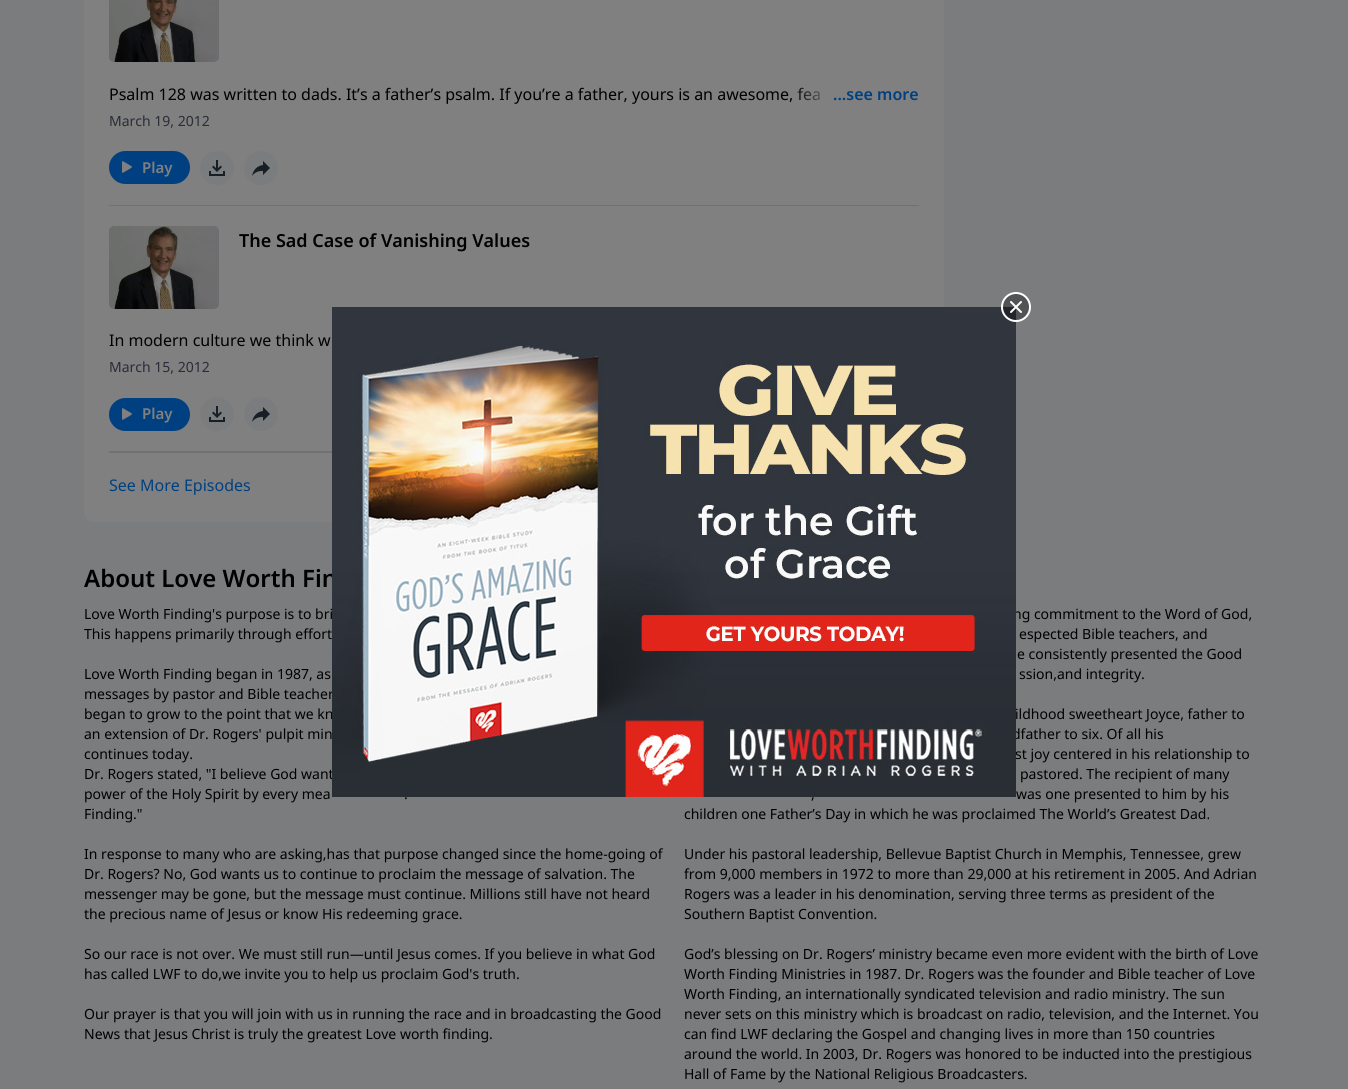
import math
import cairo

surface = cairo.ImageSurface(cairo.FORMAT_RGB24, 1348, 1089)
ctx = cairo.Context(surface)
options = cairo.FontOptions()
options.set_hint_metrics(cairo.HINT_METRICS_OFF)
options.set_hint_style(cairo.HINT_STYLE_NONE)
ctx.set_font_options(options)
ctx.set_miter_limit(4)


def round_rect(x, y, w, h, r):
    ctx.new_sub_path()
    for i, (u, v) in enumerate([(x + w - r, y + h - r), (x + r, y + h - r), (x + r, y + r), (x + w - r, y + r)]):
        ctx.arc(u, v, r, i * math.pi / 2, (i + 1) * math.pi / 2)
    ctx.close_path()


def picture(path, x, y, w, h):
    ctx.save()
    ctx.set_source_surface(cairo.ImageSurface.create_from_png(path), x, y)
    ctx.rectangle(x, y, w, h)
    ctx.fill()
    ctx.restore()


ctx.set_source_rgb(0.482, 0.486, 0.49)
ctx.paint()
ctx.set_source_rgb(0.502, 0.502, 0.502)
round_rect(84, -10, 860, 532, 10)
ctx.fill()
ctx.set_source_rgb(0.435, 0.447, 0.455)
ctx.rectangle(109, 451, 223, 2)
ctx.fill()
ctx.rectangle(109, 205, 810, 1)
ctx.fill()
picture("img1.png", 109, 0, 110, 62)
ctx.select_font_face("Noto Sans")
ctx.set_font_size(16)
ctx.set_source_rgb(0, 0, 0)
ctx.move_to(109, 100)
ctx.show_text("Psalm 128 was written to dads. It’s a father’s psalm. If you’re a father, yours is an awesome, fea")
gradient = cairo.LinearGradient(793, 94, 919, 94)
gradient.add_color_stop_rgba(0, 0.502, 0.502, 0.502, 0)
gradient.add_color_stop_rgba(0.32, 0.502, 0.502, 0.502, 1)
ctx.set_source(gradient)
ctx.rectangle(798, 87, 22, 14)
ctx.fill()
ctx.select_font_face("Noto Sans SemiBold")
ctx.set_source_rgb(0, 0.251, 0.502)
ctx.move_to(833, 100)
ctx.show_text("...see more")
ctx.select_font_face("Noto Sans")
ctx.set_font_size(14)
ctx.set_source_rgb(0.161, 0.173, 0.22)
ctx.move_to(109, 126)
ctx.show_text("March 19, 2012")
ctx.set_source_rgb(0, 0.251, 0.502)
round_rect(109, 151, 81, 33, 16.5)
ctx.fill()
picture("img2.png", 122, 161, 10, 12)
ctx.select_font_face("Noto Sans SemiBold")
ctx.set_font_size(15)
ctx.set_source_rgb(0.502, 0.502, 0.502)
ctx.move_to(142, 173)
ctx.show_text("Play")
ctx.set_source_rgb(0.482, 0.486, 0.49)
ctx.new_path()
ctx.arc(217, 168, 17, 0, 2 * math.pi)
ctx.fill()
picture("img3.png", 209, 160, 16, 16)
ctx.arc(261, 168, 17, 0, 2 * math.pi)
ctx.fill()
picture("img4.png", 252, 161, 18, 15)
picture("img5.png", 109, 226, 110, 83)
ctx.set_font_size(18)
ctx.set_source_rgb(0, 0, 0)
ctx.move_to(239, 247)
ctx.show_text("The Sad Case of Vanishing Values")
ctx.select_font_face("Noto Sans")
ctx.set_font_size(16)
ctx.move_to(109, 346)
ctx.show_text("In modern culture we think w")
ctx.set_font_size(14)
ctx.set_source_rgb(0.161, 0.173, 0.22)
ctx.move_to(109, 372)
ctx.show_text("March 15, 2012")
ctx.set_source_rgb(0, 0.251, 0.502)
round_rect(109, 398, 81, 33, 16.5)
ctx.fill()
picture("img2.png", 122, 408, 10, 12)
ctx.select_font_face("Noto Sans SemiBold")
ctx.set_font_size(15)
ctx.set_source_rgb(0.502, 0.502, 0.502)
ctx.move_to(142, 419)
ctx.show_text("Play")
ctx.set_source_rgb(0.482, 0.486, 0.49)
ctx.new_path()
ctx.arc(217, 414, 17, 0, 2 * math.pi)
ctx.fill()
picture("img3.png", 209, 406, 16, 16)
ctx.arc(261, 414, 17, 0, 2 * math.pi)
ctx.fill()
picture("img4.png", 252, 407, 18, 15)
ctx.select_font_face("Noto Sans")
ctx.set_font_size(16)
ctx.set_source_rgb(0, 0.251, 0.502)
ctx.move_to(109, 491)
ctx.show_text("See More Episodes")
ctx.select_font_face("Noto Sans SemiBold")
ctx.set_font_size(24)
ctx.set_source_rgb(0, 0, 0)
ctx.move_to(84, 587)
ctx.show_text("About Love Worth Fin")
ctx.select_font_face("Noto Sans")
ctx.set_font_size(14)
ctx.move_to(84, 699)
ctx.show_text("messages by pastor and Bible teacher")
ctx.move_to(84, 719)
ctx.show_text("began to grow to the point that we kn")
ctx.move_to(84, 779)
ctx.show_text("Dr. Rogers stated, \"I believe God want")
ctx.move_to(1013, 619)
ctx.show_text("ng commitment to the Word of God,")
ctx.move_to(1012, 739)
ctx.show_text("dfather to six. Of all his")
ctx.move_to(1015, 759)
ctx.show_text("st joy centered in his relationship to")
picture("img7.png", 332, 307, 684, 490)
picture("img6.png", 1001, 292, 30, 30)
ctx.move_to(84, 619)
ctx.show_text("Love Worth Finding's purpose is to bri")
ctx.move_to(84, 639)
ctx.show_text("This happens primarily through effort")
ctx.move_to(84, 679)
ctx.show_text("Love Worth Finding began in 1987, as")
ctx.move_to(84, 739)
ctx.show_text("an extension of Dr. Rogers' pulpit min")
ctx.move_to(84, 759)
ctx.show_text("continues today.")
ctx.move_to(84, 799)
ctx.show_text("power of the Holy Spirit by every mea")
ctx.move_to(404, 799)
ctx.show_text(".")
ctx.move_to(84, 819)
ctx.show_text("Finding.\"")
ctx.move_to(84, 859)
ctx.show_text("In response to many who are asking,has that purpose changed since the home-going of")
ctx.move_to(84, 879)
ctx.show_text("Dr. Rogers? No, God wants us to continue to proclaim the message of salvation. The")
ctx.move_to(84, 899)
ctx.show_text("messenger may be gone, but the message must continue. Millions still have not heard")
ctx.move_to(84, 919)
ctx.show_text("the precious name of Jesus or know His redeeming grace.")
ctx.move_to(84, 959)
ctx.show_text("So our race is not over. We must still run—until Jesus comes. If you believe in what God")
ctx.move_to(84, 979)
ctx.show_text("has called LWF to do,we invite you to help us proclaim God's truth.")
ctx.move_to(84, 1019)
ctx.show_text("Our prayer is that you will join with us in running the race and in broadcasting the Good")
ctx.move_to(84, 1039)
ctx.show_text("News that Jesus Christ is truly the greatest Love worth finding.")
ctx.move_to(1019, 639)
ctx.show_text("espected Bible teachers, and")
ctx.move_to(1017, 659)
ctx.show_text("e consistently presented the Good")
ctx.move_to(1019, 679)
ctx.show_text("ssion,and integrity.")
ctx.move_to(1015, 719)
ctx.show_text("ildhood sweetheart Joyce, father to")
ctx.move_to(1020, 779)
ctx.show_text("pastored. The recipient of many")
ctx.move_to(811, 799)
ctx.show_text(",")
ctx.move_to(1016, 799)
ctx.show_text("was one presented to him by his")
ctx.move_to(684, 819)
ctx.show_text("children one Father’s Day in which he was proclaimed The World’s Greatest Dad.")
ctx.move_to(684, 859)
ctx.show_text("Under his pastoral leadership, Bellevue Baptist Church in Memphis, Tennessee, grew")
ctx.move_to(684, 879)
ctx.show_text("from 9,000 members in 1972 to more than 29,000 at his retirement in 2005. And Adrian")
ctx.move_to(684, 899)
ctx.show_text("Rogers was a leader in his denomination, serving three terms as president of the")
ctx.move_to(684, 919)
ctx.show_text("Southern Baptist Convention.")
ctx.move_to(684, 959)
ctx.show_text("God’s blessing on Dr. Rogers’ ministry became even more evident with the birth of Love")
ctx.move_to(684, 979)
ctx.show_text("Worth Finding Ministries in 1987. Dr. Rogers was the founder and Bible teacher of Love")
ctx.move_to(684, 999)
ctx.show_text("Worth Finding, an internationally syndicated television and radio ministry. The sun")
ctx.move_to(684, 1019)
ctx.show_text("never sets on this ministry which is broadcast on radio, television, and the Internet. You")
ctx.move_to(684, 1039)
ctx.show_text("can find LWF declaring the Gospel and changing lives in more than 150 countries")
ctx.move_to(684, 1059)
ctx.show_text("around the world. In 2003, Dr. Rogers was honored to be inducted into the prestigious")
ctx.move_to(684, 1079)
ctx.show_text("Hall of Fame by the National Religious Broadcasters.")
surface.write_to_png("page.png")
